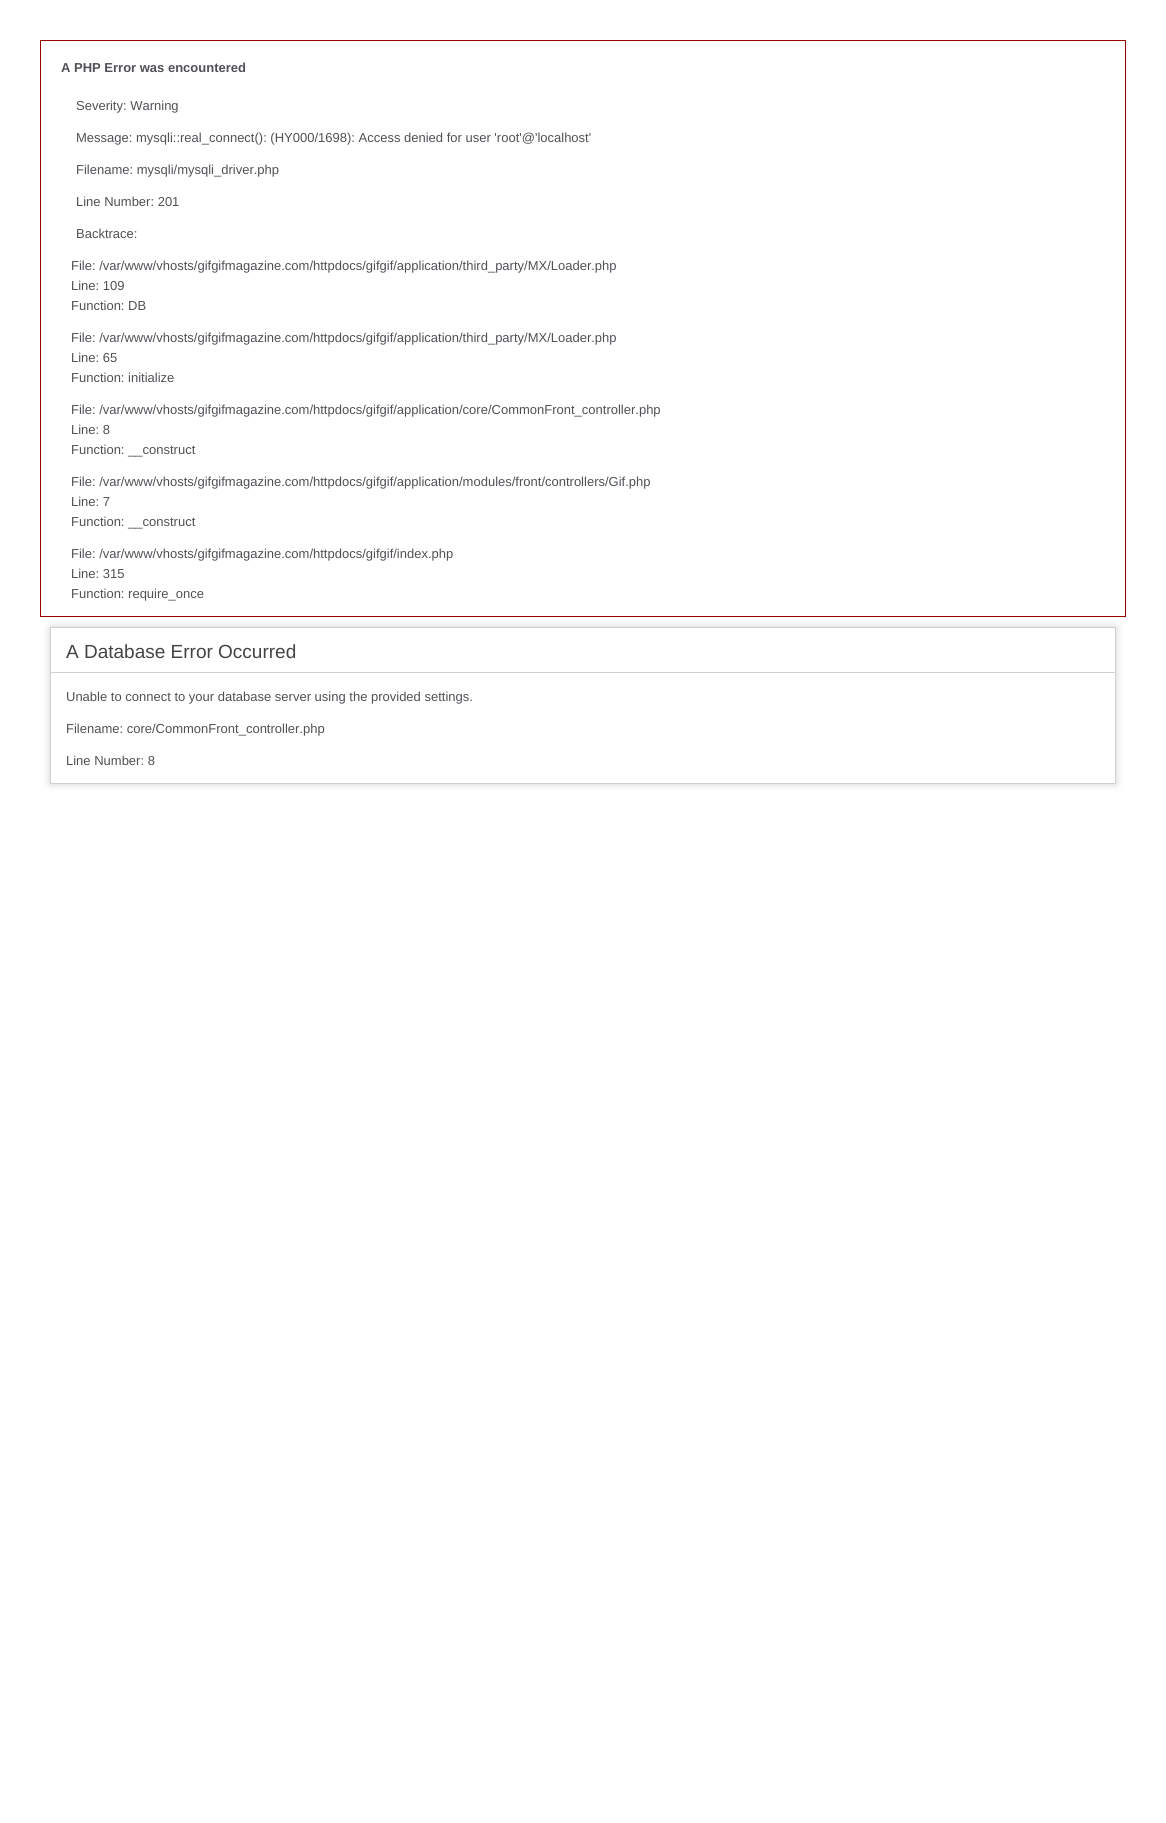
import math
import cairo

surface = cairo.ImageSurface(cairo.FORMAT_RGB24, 1166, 1823)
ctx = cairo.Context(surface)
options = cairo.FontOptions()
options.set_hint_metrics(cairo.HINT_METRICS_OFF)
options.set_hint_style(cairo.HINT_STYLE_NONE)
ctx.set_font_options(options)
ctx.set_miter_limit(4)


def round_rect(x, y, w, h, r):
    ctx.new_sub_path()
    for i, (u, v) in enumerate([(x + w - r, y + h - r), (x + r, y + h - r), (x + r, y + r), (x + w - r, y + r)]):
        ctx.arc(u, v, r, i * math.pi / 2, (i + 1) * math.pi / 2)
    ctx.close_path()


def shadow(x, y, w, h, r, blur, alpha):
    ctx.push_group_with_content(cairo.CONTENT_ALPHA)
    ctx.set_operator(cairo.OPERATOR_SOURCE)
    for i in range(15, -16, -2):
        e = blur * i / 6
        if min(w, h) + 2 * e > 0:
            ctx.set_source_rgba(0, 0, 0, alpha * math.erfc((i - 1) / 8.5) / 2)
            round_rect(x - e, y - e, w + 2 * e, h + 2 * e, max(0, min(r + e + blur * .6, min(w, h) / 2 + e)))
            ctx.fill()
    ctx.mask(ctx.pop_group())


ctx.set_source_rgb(1, 1, 1)
ctx.paint()
ctx.rectangle(40.5, 40.5, 1085, 576)
ctx.set_source_rgb(0.6, 0, 0)
ctx.set_line_width(1)
ctx.stroke()
ctx.select_font_face("Liberation Sans", cairo.FONT_SLANT_NORMAL, cairo.FONT_WEIGHT_BOLD)
ctx.set_font_size(13)
ctx.set_source_rgb(0.31, 0.318, 0.333)
ctx.move_to(61, 72)
ctx.show_text("A PHP Error was encountered")
ctx.select_font_face("Liberation Sans")
ctx.move_to(76, 110)
ctx.show_text("Severity: Warning")
ctx.move_to(76, 142)
ctx.show_text("Message: mysqli::real_connect(): (HY000/1698): Access denied for user 'root'@'localhost'")
ctx.move_to(76, 174)
ctx.show_text("Filename: mysqli/mysqli_driver.php")
ctx.move_to(76, 206)
ctx.show_text("Line Number: 201")
ctx.move_to(76, 238)
ctx.show_text("Backtrace:")
ctx.move_to(71, 270)
ctx.show_text("File: /var/www/vhosts/gifgifmagazine.com/httpdocs/gifgif/application/third_party/MX/Loader.php")
ctx.move_to(71, 290)
ctx.show_text("Line: 109")
ctx.move_to(71, 310)
ctx.show_text("Function: DB")
ctx.move_to(71, 342)
ctx.show_text("File: /var/www/vhosts/gifgifmagazine.com/httpdocs/gifgif/application/third_party/MX/Loader.php")
ctx.move_to(71, 362)
ctx.show_text("Line: 65")
ctx.move_to(71, 382)
ctx.show_text("Function: initialize")
ctx.move_to(71, 414)
ctx.show_text("File: /var/www/vhosts/gifgifmagazine.com/httpdocs/gifgif/application/core/CommonFront_controller.php")
ctx.move_to(71, 434)
ctx.show_text("Line: 8")
ctx.move_to(71, 454)
ctx.show_text("Function: __construct")
ctx.move_to(71, 486)
ctx.show_text("File: /var/www/vhosts/gifgifmagazine.com/httpdocs/gifgif/application/modules/front/controllers/Gif.php")
ctx.move_to(71, 506)
ctx.show_text("Line: 7")
ctx.move_to(71, 526)
ctx.show_text("Function: __construct")
ctx.move_to(71, 558)
ctx.show_text("File: /var/www/vhosts/gifgifmagazine.com/httpdocs/gifgif/index.php")
ctx.move_to(71, 578)
ctx.show_text("Line: 315")
ctx.move_to(71, 598)
ctx.show_text("Function: require_once")
ctx.save()
ctx.set_fill_rule(cairo.FILL_RULE_EVEN_ODD)
ctx.new_path()
ctx.move_to(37, 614)
ctx.line_to(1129, 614)
ctx.line_to(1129, 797)
ctx.line_to(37, 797)
ctx.close_path()
ctx.move_to(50, 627)
ctx.line_to(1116, 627)
ctx.line_to(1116, 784)
ctx.line_to(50, 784)
ctx.close_path()
ctx.clip()
ctx.set_source_rgb(0.816, 0.816, 0.816)
shadow(50, 627, 1066, 157, 0, 4, 1)
ctx.restore()
ctx.rectangle(50.5, 627.5, 1065, 156)
ctx.set_source_rgb(0.816, 0.816, 0.816)
ctx.stroke()
ctx.rectangle(51, 672, 1064, 1)
ctx.fill()
ctx.set_font_size(19)
ctx.set_source_rgb(0.267, 0.267, 0.267)
ctx.move_to(66, 658)
ctx.show_text("A Database Error Occurred")
ctx.set_font_size(13)
ctx.set_source_rgb(0.31, 0.318, 0.333)
ctx.move_to(66, 701)
ctx.show_text("Unable to connect to your database server using the provided settings.")
ctx.move_to(66, 733)
ctx.show_text("Filename: core/CommonFront_controller.php")
ctx.move_to(66, 765)
ctx.show_text("Line Number: 8")
surface.write_to_png("page.png")
